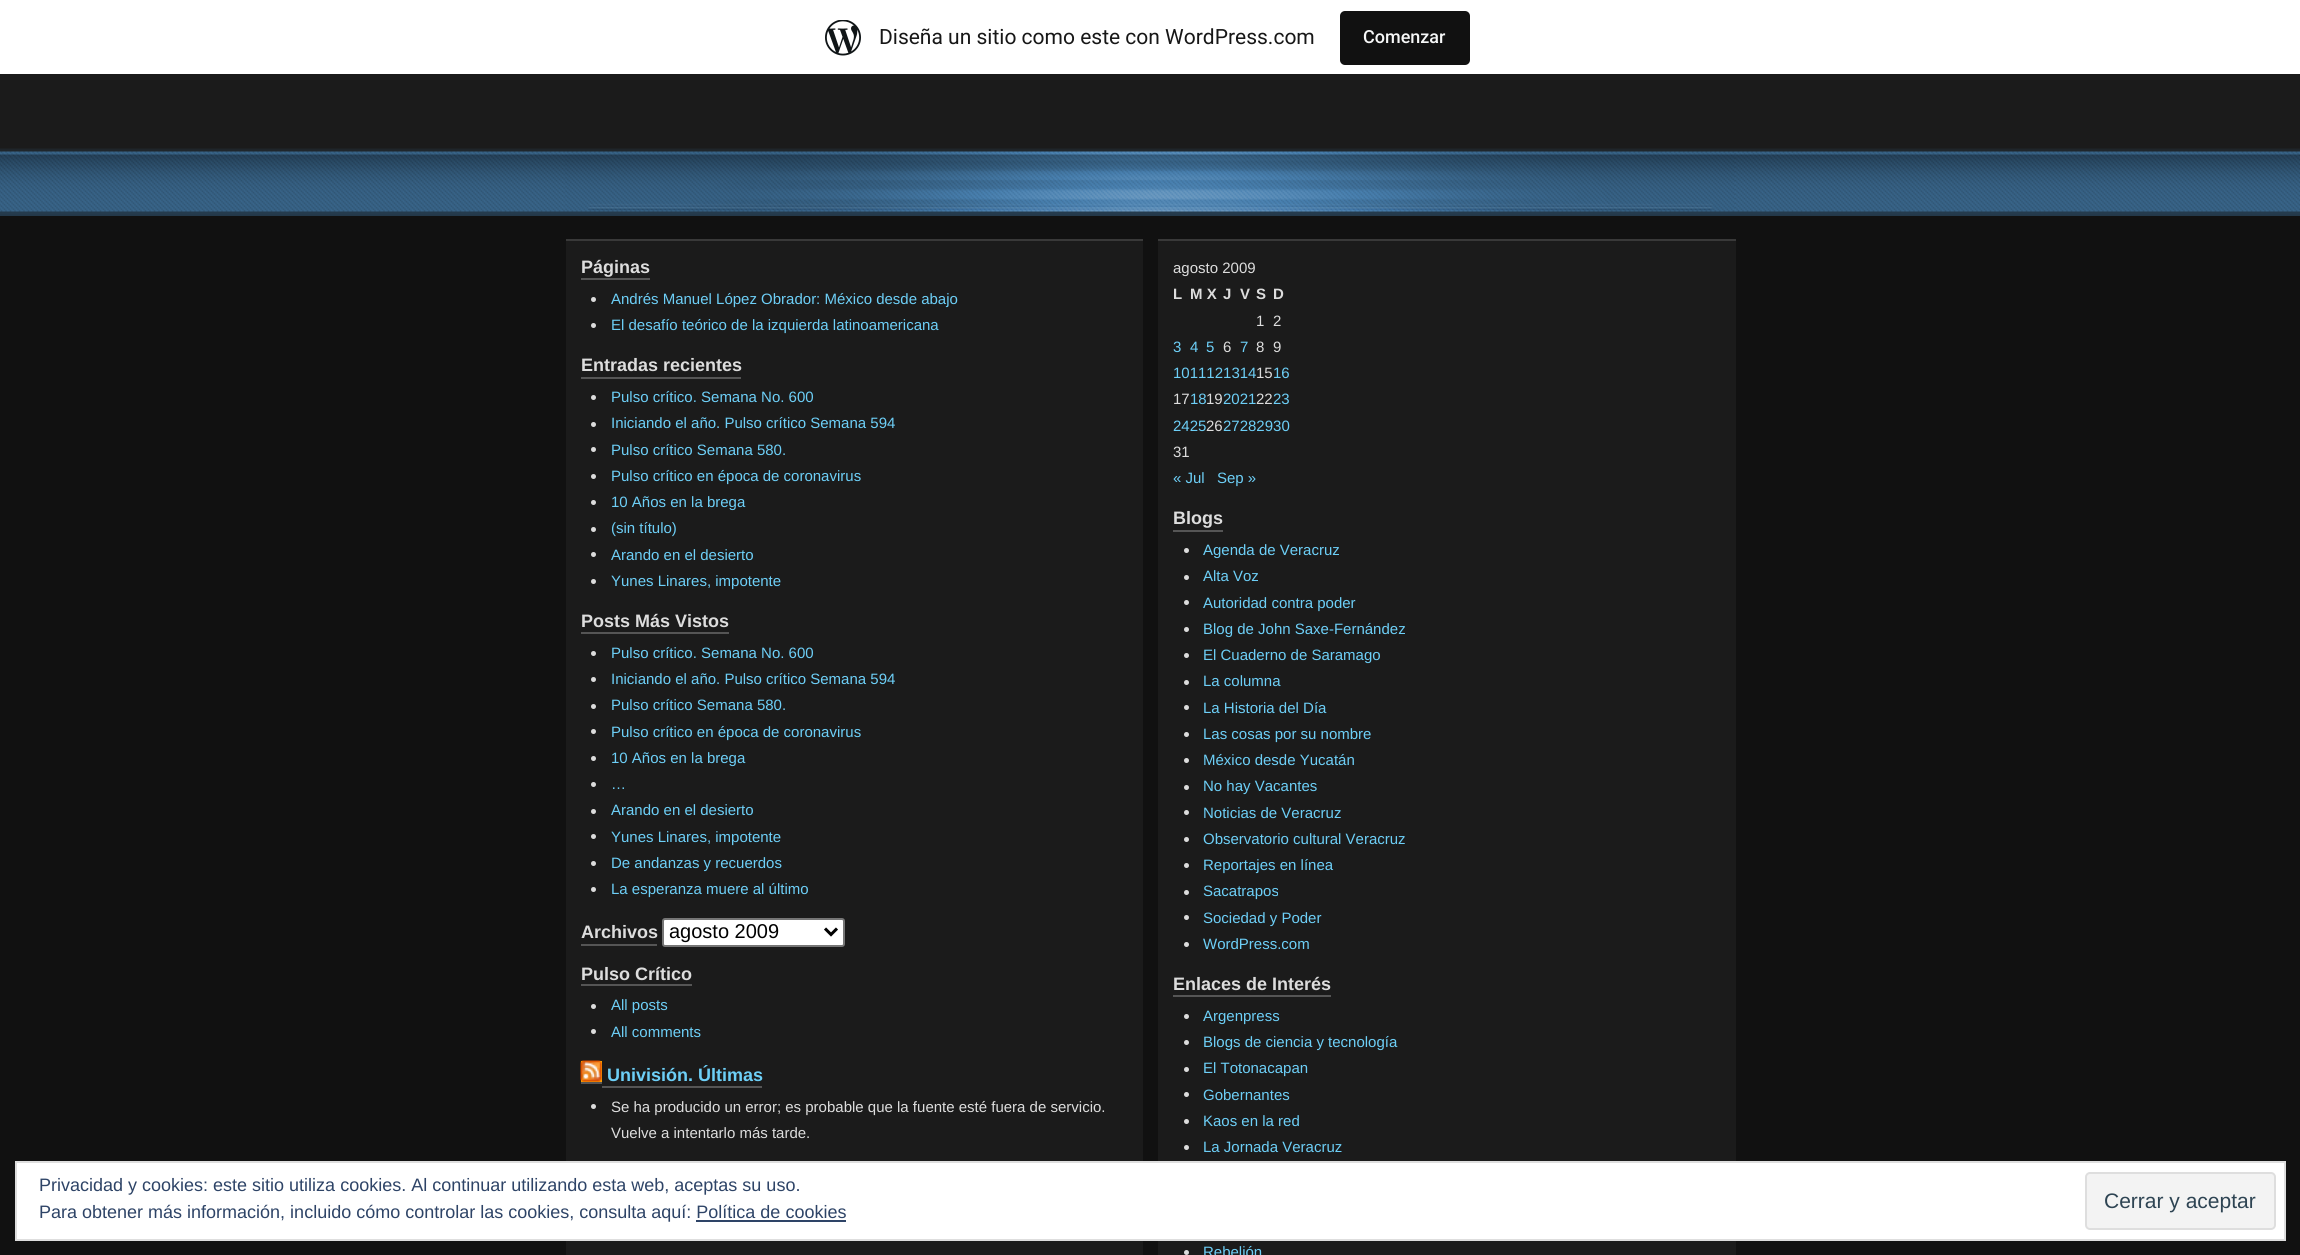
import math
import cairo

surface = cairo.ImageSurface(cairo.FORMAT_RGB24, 2300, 1255)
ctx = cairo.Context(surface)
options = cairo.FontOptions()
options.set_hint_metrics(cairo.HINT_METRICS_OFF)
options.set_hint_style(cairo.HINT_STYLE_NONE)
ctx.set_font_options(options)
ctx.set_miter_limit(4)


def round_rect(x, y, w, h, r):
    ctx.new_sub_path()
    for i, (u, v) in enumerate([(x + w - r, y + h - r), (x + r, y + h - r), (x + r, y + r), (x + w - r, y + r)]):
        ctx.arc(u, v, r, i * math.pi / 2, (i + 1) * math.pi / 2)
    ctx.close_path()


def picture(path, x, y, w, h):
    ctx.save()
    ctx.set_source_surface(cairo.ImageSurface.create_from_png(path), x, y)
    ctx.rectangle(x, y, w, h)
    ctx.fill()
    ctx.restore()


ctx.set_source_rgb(0.106, 0.106, 0.106)
ctx.paint()
ctx.set_source_rgb(1, 1, 1)
ctx.rectangle(0, 0, 2300, 74)
ctx.fill()
picture("img1.png", 825, 20, 36, 36)
ctx.select_font_face("Roboto")
ctx.set_font_size(21)
ctx.set_source_rgb(0.09, 0.09, 0.09)
ctx.move_to(879, 44)
ctx.show_text("Diseña un sitio como este con WordPress.com")
ctx.set_source_rgb(0.067, 0.067, 0.067)
round_rect(1340, 11, 130, 54, 5)
ctx.fill()
ctx.select_font_face("Roboto Medium")
ctx.set_font_size(18)
ctx.set_source_rgb(0.965, 0.969, 0.969)
ctx.move_to(1363, 43)
ctx.show_text("Comenzar")
ctx.set_source_rgb(0.067, 0.067, 0.067)
ctx.rectangle(0, 216, 2300, 1039)
ctx.fill()
picture("img2.png", 0, 148, 2300, 68)
picture("img3.png", 565, 151, 1170, 61)
ctx.set_source_rgb(0.106, 0.106, 0.106)
ctx.rectangle(566, 241, 577, 1014)
ctx.fill()
ctx.set_source_rgb(0.224, 0.224, 0.224)
ctx.rectangle(566, 239, 577, 2)
ctx.fill()
ctx.select_font_face("Liberation Sans", cairo.FONT_SLANT_NORMAL, cairo.FONT_WEIGHT_BOLD)
ctx.set_source_rgb(0.867, 0.867, 0.867)
ctx.move_to(581, 273)
ctx.show_text("Páginas")
ctx.set_source_rgb(0.333, 0.333, 0.333)
ctx.rectangle(581, 278, 69, 2)
ctx.fill()
ctx.set_source_rgb(0.867, 0.867, 0.867)
ctx.arc(593.5, 299.5, 2.5, 0, 2 * math.pi)
ctx.fill()
ctx.select_font_face("Liberation Sans")
ctx.set_font_size(15)
ctx.set_source_rgb(0.427, 0.812, 0.965)
ctx.move_to(611, 304)
ctx.show_text("Andrés Manuel López Obrador: México desde abajo")
ctx.set_source_rgb(0.867, 0.867, 0.867)
ctx.new_path()
ctx.arc(593.5, 325.5, 2.5, 0, 2 * math.pi)
ctx.fill()
ctx.set_source_rgb(0.427, 0.812, 0.965)
ctx.move_to(611, 330)
ctx.show_text("El desafío teórico de la izquierda latinoamericana")
ctx.select_font_face("Liberation Sans", cairo.FONT_SLANT_NORMAL, cairo.FONT_WEIGHT_BOLD)
ctx.set_font_size(18)
ctx.set_source_rgb(0.867, 0.867, 0.867)
ctx.move_to(581, 371)
ctx.show_text("Entradas recientes")
ctx.set_source_rgb(0.333, 0.333, 0.333)
ctx.rectangle(581, 377, 160, 2)
ctx.fill()
ctx.set_source_rgb(0.867, 0.867, 0.867)
ctx.arc(593.5, 397.5, 2.5, 0, 2 * math.pi)
ctx.fill()
ctx.select_font_face("Liberation Sans")
ctx.set_font_size(15)
ctx.set_source_rgb(0.427, 0.812, 0.965)
ctx.move_to(611, 402)
ctx.show_text("Pulso crítico. Semana No. 600")
ctx.set_source_rgb(0.867, 0.867, 0.867)
ctx.new_path()
ctx.arc(593.5, 424.5, 2.5, 0, 2 * math.pi)
ctx.fill()
ctx.set_source_rgb(0.427, 0.812, 0.965)
ctx.move_to(611, 428)
ctx.show_text("Iniciando el año. Pulso crítico Semana 594")
ctx.set_source_rgb(0.867, 0.867, 0.867)
ctx.new_path()
ctx.arc(593.5, 449.5, 2.5, 0, 2 * math.pi)
ctx.fill()
ctx.set_source_rgb(0.427, 0.812, 0.965)
ctx.move_to(611, 455)
ctx.show_text("Pulso crítico Semana 580.")
ctx.set_source_rgb(0.867, 0.867, 0.867)
ctx.new_path()
ctx.arc(593.5, 476.5, 2.5, 0, 2 * math.pi)
ctx.fill()
ctx.set_source_rgb(0.427, 0.812, 0.965)
ctx.move_to(611, 481)
ctx.show_text("Pulso crítico en época de coronavirus")
ctx.set_source_rgb(0.867, 0.867, 0.867)
ctx.new_path()
ctx.arc(593.5, 502.5, 2.5, 0, 2 * math.pi)
ctx.fill()
ctx.set_source_rgb(0.427, 0.812, 0.965)
ctx.move_to(611, 507)
ctx.show_text("10 Años en la brega")
ctx.set_source_rgb(0.867, 0.867, 0.867)
ctx.new_path()
ctx.arc(593.5, 529.5, 2.5, 0, 2 * math.pi)
ctx.fill()
ctx.set_source_rgb(0.427, 0.812, 0.965)
ctx.move_to(611, 533)
ctx.show_text("(sin título)")
ctx.set_source_rgb(0.867, 0.867, 0.867)
ctx.new_path()
ctx.arc(593.5, 554.5, 2.5, 0, 2 * math.pi)
ctx.fill()
ctx.set_source_rgb(0.427, 0.812, 0.965)
ctx.move_to(611, 560)
ctx.show_text("Arando en el desierto")
ctx.set_source_rgb(0.867, 0.867, 0.867)
ctx.new_path()
ctx.arc(593.5, 581.5, 2.5, 0, 2 * math.pi)
ctx.fill()
ctx.set_source_rgb(0.427, 0.812, 0.965)
ctx.move_to(611, 586)
ctx.show_text("Yunes Linares, impotente")
ctx.select_font_face("Liberation Sans", cairo.FONT_SLANT_NORMAL, cairo.FONT_WEIGHT_BOLD)
ctx.set_font_size(18)
ctx.set_source_rgb(0.867, 0.867, 0.867)
ctx.move_to(581, 627)
ctx.show_text("Posts Más Vistos")
ctx.set_source_rgb(0.333, 0.333, 0.333)
ctx.rectangle(581, 632, 148, 2)
ctx.fill()
ctx.set_source_rgb(0.867, 0.867, 0.867)
ctx.arc(593.5, 653.5, 2.5, 0, 2 * math.pi)
ctx.fill()
ctx.select_font_face("Liberation Sans")
ctx.set_font_size(15)
ctx.set_source_rgb(0.427, 0.812, 0.965)
ctx.move_to(611, 658)
ctx.show_text("Pulso crítico. Semana No. 600")
ctx.set_source_rgb(0.867, 0.867, 0.867)
ctx.new_path()
ctx.arc(593.5, 679.5, 2.5, 0, 2 * math.pi)
ctx.fill()
ctx.set_source_rgb(0.427, 0.812, 0.965)
ctx.move_to(611, 684)
ctx.show_text("Iniciando el año. Pulso crítico Semana 594")
ctx.set_source_rgb(0.867, 0.867, 0.867)
ctx.new_path()
ctx.arc(593.5, 706.5, 2.5, 0, 2 * math.pi)
ctx.fill()
ctx.set_source_rgb(0.427, 0.812, 0.965)
ctx.move_to(611, 710)
ctx.show_text("Pulso crítico Semana 580.")
ctx.set_source_rgb(0.867, 0.867, 0.867)
ctx.new_path()
ctx.arc(593.5, 731.5, 2.5, 0, 2 * math.pi)
ctx.fill()
ctx.set_source_rgb(0.427, 0.812, 0.965)
ctx.move_to(611, 737)
ctx.show_text("Pulso crítico en época de coronavirus")
ctx.set_source_rgb(0.867, 0.867, 0.867)
ctx.new_path()
ctx.arc(593.5, 758.5, 2.5, 0, 2 * math.pi)
ctx.fill()
ctx.set_source_rgb(0.427, 0.812, 0.965)
ctx.move_to(611, 763)
ctx.show_text("10 Años en la brega")
ctx.set_source_rgb(0.867, 0.867, 0.867)
ctx.new_path()
ctx.arc(593.5, 784.5, 2.5, 0, 2 * math.pi)
ctx.fill()
ctx.set_source_rgb(0.427, 0.812, 0.965)
ctx.move_to(611, 789)
ctx.show_text("…")
ctx.set_source_rgb(0.867, 0.867, 0.867)
ctx.new_path()
ctx.arc(593.5, 811.5, 2.5, 0, 2 * math.pi)
ctx.fill()
ctx.set_source_rgb(0.427, 0.812, 0.965)
ctx.move_to(611, 815)
ctx.show_text("Arando en el desierto")
ctx.set_source_rgb(0.867, 0.867, 0.867)
ctx.new_path()
ctx.arc(593.5, 836.5, 2.5, 0, 2 * math.pi)
ctx.fill()
ctx.set_source_rgb(0.427, 0.812, 0.965)
ctx.move_to(611, 842)
ctx.show_text("Yunes Linares, impotente")
ctx.set_source_rgb(0.867, 0.867, 0.867)
ctx.new_path()
ctx.arc(593.5, 863.5, 2.5, 0, 2 * math.pi)
ctx.fill()
ctx.set_source_rgb(0.427, 0.812, 0.965)
ctx.move_to(611, 868)
ctx.show_text("De andanzas y recuerdos")
ctx.set_source_rgb(0.867, 0.867, 0.867)
ctx.new_path()
ctx.arc(593.5, 889.5, 2.5, 0, 2 * math.pi)
ctx.fill()
ctx.set_source_rgb(0.427, 0.812, 0.965)
ctx.move_to(611, 894)
ctx.show_text("La esperanza muere al último")
ctx.select_font_face("Liberation Sans", cairo.FONT_SLANT_NORMAL, cairo.FONT_WEIGHT_BOLD)
ctx.set_font_size(18)
ctx.set_source_rgb(0.867, 0.867, 0.867)
ctx.move_to(581, 938)
ctx.show_text("Archivos")
ctx.set_source_rgb(0.333, 0.333, 0.333)
ctx.rectangle(581, 944, 76, 2)
ctx.fill()
ctx.set_source_rgb(1, 1, 1)
round_rect(663, 919, 181, 27, 2)
ctx.fill_preserve()
ctx.set_source_rgb(0.463, 0.463, 0.463)
ctx.stroke()
ctx.new_path()
ctx.move_to(825, 928.5)
ctx.line_to(831, 934.5)
ctx.line_to(837, 928.5)
ctx.set_source_rgb(0, 0, 0)
ctx.set_line_width(3)
ctx.stroke()
ctx.select_font_face("Liberation Sans")
ctx.set_font_size(20)
ctx.move_to(669, 938)
ctx.show_text("agosto 2009")
ctx.select_font_face("Liberation Sans", cairo.FONT_SLANT_NORMAL, cairo.FONT_WEIGHT_BOLD)
ctx.set_font_size(18)
ctx.set_source_rgb(0.867, 0.867, 0.867)
ctx.move_to(581, 980)
ctx.show_text("Pulso Crítico")
ctx.set_source_rgb(0.333, 0.333, 0.333)
ctx.rectangle(581, 984, 111, 2)
ctx.fill()
ctx.set_source_rgb(0.867, 0.867, 0.867)
ctx.arc(593.5, 1006.5, 2.5, 0, 2 * math.pi)
ctx.fill()
ctx.select_font_face("Liberation Sans")
ctx.set_font_size(15)
ctx.set_source_rgb(0.427, 0.812, 0.965)
ctx.move_to(611, 1010)
ctx.show_text("All posts")
ctx.set_source_rgb(0.867, 0.867, 0.867)
ctx.new_path()
ctx.arc(593.5, 1031.5, 2.5, 0, 2 * math.pi)
ctx.fill()
ctx.set_source_rgb(0.427, 0.812, 0.965)
ctx.move_to(611, 1037)
ctx.show_text("All comments")
ctx.set_source_rgb(1, 0.647, 0)
ctx.rectangle(581, 1061, 21, 21)
ctx.fill()
picture("img4.png", 580, 1060, 22, 22)
ctx.select_font_face("Liberation Sans", cairo.FONT_SLANT_NORMAL, cairo.FONT_WEIGHT_BOLD)
ctx.set_font_size(18)
ctx.set_source_rgb(0.427, 0.812, 0.965)
ctx.move_to(607, 1081)
ctx.show_text("Univisión. Últimas")
ctx.set_source_rgb(0.333, 0.333, 0.333)
ctx.rectangle(581, 1082, 21, 2)
ctx.fill()
ctx.rectangle(602, 1086, 160, 2)
ctx.fill()
ctx.set_source_rgb(0.867, 0.867, 0.867)
ctx.arc(593.5, 1106.5, 2.5, 0, 2 * math.pi)
ctx.fill()
ctx.select_font_face("Liberation Sans")
ctx.set_font_size(15)
ctx.move_to(611, 1112)
ctx.show_text("Se ha producido un error; es probable que la fuente esté fuera de servicio.")
ctx.move_to(611, 1138)
ctx.show_text("Vuelve a intentarlo más tarde.")
ctx.set_source_rgb(0.106, 0.106, 0.106)
ctx.rectangle(1158, 241, 578, 1014)
ctx.fill()
ctx.set_source_rgb(0.224, 0.224, 0.224)
ctx.rectangle(1158, 239, 578, 2)
ctx.fill()
ctx.set_source_rgb(0.867, 0.867, 0.867)
ctx.move_to(1173, 273)
ctx.show_text("agosto 2009")
ctx.select_font_face("Liberation Sans", cairo.FONT_SLANT_NORMAL, cairo.FONT_WEIGHT_BOLD)
ctx.move_to(1173, 299)
ctx.show_text("L")
ctx.move_to(1190, 299)
ctx.show_text("M X")
ctx.move_to(1223, 299)
ctx.show_text("J")
ctx.move_to(1240, 299)
ctx.show_text("V")
ctx.move_to(1256, 299)
ctx.show_text("S")
ctx.move_to(1273, 299)
ctx.show_text("D")
ctx.select_font_face("Liberation Sans")
ctx.move_to(1256, 326)
ctx.show_text("1")
ctx.move_to(1273, 326)
ctx.show_text("2")
ctx.set_source_rgb(0.427, 0.812, 0.965)
ctx.move_to(1173, 352)
ctx.show_text("3")
ctx.move_to(1190, 352)
ctx.show_text("4")
ctx.move_to(1206, 352)
ctx.show_text("5")
ctx.set_source_rgb(0.867, 0.867, 0.867)
ctx.move_to(1223, 352)
ctx.show_text("6")
ctx.set_source_rgb(0.427, 0.812, 0.965)
ctx.move_to(1240, 352)
ctx.show_text("7")
ctx.set_source_rgb(0.867, 0.867, 0.867)
ctx.move_to(1256, 352)
ctx.show_text("8")
ctx.move_to(1273, 352)
ctx.show_text("9")
ctx.set_source_rgb(0.427, 0.812, 0.965)
ctx.move_to(1173, 378)
ctx.show_text("1011121314")
ctx.set_source_rgb(0.867, 0.867, 0.867)
ctx.move_to(1256, 378)
ctx.show_text("15")
ctx.set_source_rgb(0.427, 0.812, 0.965)
ctx.move_to(1273, 378)
ctx.show_text("16")
ctx.set_source_rgb(0.867, 0.867, 0.867)
ctx.move_to(1173, 404)
ctx.show_text("17")
ctx.set_source_rgb(0.427, 0.812, 0.965)
ctx.move_to(1190, 404)
ctx.show_text("18")
ctx.set_source_rgb(0.867, 0.867, 0.867)
ctx.move_to(1206, 404)
ctx.show_text("19")
ctx.set_source_rgb(0.427, 0.812, 0.965)
ctx.move_to(1223, 404)
ctx.show_text("2021")
ctx.set_source_rgb(0.867, 0.867, 0.867)
ctx.move_to(1256, 404)
ctx.show_text("22")
ctx.set_source_rgb(0.427, 0.812, 0.965)
ctx.move_to(1273, 404)
ctx.show_text("23")
ctx.move_to(1173, 431)
ctx.show_text("2425")
ctx.set_source_rgb(0.867, 0.867, 0.867)
ctx.move_to(1206, 431)
ctx.show_text("26")
ctx.set_source_rgb(0.427, 0.812, 0.965)
ctx.move_to(1223, 431)
ctx.show_text("27282930")
ctx.set_source_rgb(0.867, 0.867, 0.867)
ctx.move_to(1173, 457)
ctx.show_text("31")
ctx.set_source_rgb(0.427, 0.812, 0.965)
ctx.move_to(1173, 483)
ctx.show_text("« Jul")
ctx.move_to(1217, 483)
ctx.show_text("Sep »")
ctx.select_font_face("Liberation Sans", cairo.FONT_SLANT_NORMAL, cairo.FONT_WEIGHT_BOLD)
ctx.set_font_size(18)
ctx.set_source_rgb(0.867, 0.867, 0.867)
ctx.move_to(1173, 524)
ctx.show_text("Blogs")
ctx.set_source_rgb(0.333, 0.333, 0.333)
ctx.rectangle(1173, 530, 50, 2)
ctx.fill()
ctx.set_source_rgb(0.867, 0.867, 0.867)
ctx.arc(1186.5, 550.5, 2.5, 0, 2 * math.pi)
ctx.fill()
ctx.select_font_face("Liberation Sans")
ctx.set_font_size(15)
ctx.set_source_rgb(0.427, 0.812, 0.965)
ctx.move_to(1203, 555)
ctx.show_text("Agenda de Veracruz")
ctx.set_source_rgb(0.867, 0.867, 0.867)
ctx.new_path()
ctx.arc(1186.5, 577.5, 2.5, 0, 2 * math.pi)
ctx.fill()
ctx.set_source_rgb(0.427, 0.812, 0.965)
ctx.move_to(1203, 581)
ctx.show_text("Alta Voz")
ctx.set_source_rgb(0.867, 0.867, 0.867)
ctx.new_path()
ctx.arc(1186.5, 602.5, 2.5, 0, 2 * math.pi)
ctx.fill()
ctx.set_source_rgb(0.427, 0.812, 0.965)
ctx.move_to(1203, 608)
ctx.show_text("Autoridad contra poder")
ctx.set_source_rgb(0.867, 0.867, 0.867)
ctx.new_path()
ctx.arc(1186.5, 629.5, 2.5, 0, 2 * math.pi)
ctx.fill()
ctx.set_source_rgb(0.427, 0.812, 0.965)
ctx.move_to(1203, 634)
ctx.show_text("Blog de John Saxe-Fernández")
ctx.set_source_rgb(0.867, 0.867, 0.867)
ctx.new_path()
ctx.arc(1186.5, 655.5, 2.5, 0, 2 * math.pi)
ctx.fill()
ctx.set_source_rgb(0.427, 0.812, 0.965)
ctx.move_to(1203, 660)
ctx.show_text("El Cuaderno de Saramago")
ctx.set_source_rgb(0.867, 0.867, 0.867)
ctx.new_path()
ctx.arc(1186.5, 682.5, 2.5, 0, 2 * math.pi)
ctx.fill()
ctx.set_source_rgb(0.427, 0.812, 0.965)
ctx.move_to(1203, 686)
ctx.show_text("La columna")
ctx.set_source_rgb(0.867, 0.867, 0.867)
ctx.new_path()
ctx.arc(1186.5, 707.5, 2.5, 0, 2 * math.pi)
ctx.fill()
ctx.set_source_rgb(0.427, 0.812, 0.965)
ctx.move_to(1203, 713)
ctx.show_text("La Historia del Día")
ctx.set_source_rgb(0.867, 0.867, 0.867)
ctx.new_path()
ctx.arc(1186.5, 734.5, 2.5, 0, 2 * math.pi)
ctx.fill()
ctx.set_source_rgb(0.427, 0.812, 0.965)
ctx.move_to(1203, 739)
ctx.show_text("Las cosas por su nombre")
ctx.set_source_rgb(0.867, 0.867, 0.867)
ctx.new_path()
ctx.arc(1186.5, 760.5, 2.5, 0, 2 * math.pi)
ctx.fill()
ctx.set_source_rgb(0.427, 0.812, 0.965)
ctx.move_to(1203, 765)
ctx.show_text("México desde Yucatán")
ctx.set_source_rgb(0.867, 0.867, 0.867)
ctx.new_path()
ctx.arc(1186.5, 787.5, 2.5, 0, 2 * math.pi)
ctx.fill()
ctx.set_source_rgb(0.427, 0.812, 0.965)
ctx.move_to(1203, 791)
ctx.show_text("No hay Vacantes")
ctx.set_source_rgb(0.867, 0.867, 0.867)
ctx.new_path()
ctx.arc(1186.5, 812.5, 2.5, 0, 2 * math.pi)
ctx.fill()
ctx.set_source_rgb(0.427, 0.812, 0.965)
ctx.move_to(1203, 818)
ctx.show_text("Noticias de Veracruz")
ctx.set_source_rgb(0.867, 0.867, 0.867)
ctx.new_path()
ctx.arc(1186.5, 839.5, 2.5, 0, 2 * math.pi)
ctx.fill()
ctx.set_source_rgb(0.427, 0.812, 0.965)
ctx.move_to(1203, 844)
ctx.show_text("Observatorio cultural Veracruz")
ctx.set_source_rgb(0.867, 0.867, 0.867)
ctx.new_path()
ctx.arc(1186.5, 865.5, 2.5, 0, 2 * math.pi)
ctx.fill()
ctx.set_source_rgb(0.427, 0.812, 0.965)
ctx.move_to(1203, 870)
ctx.show_text("Reportajes en línea")
ctx.set_source_rgb(0.867, 0.867, 0.867)
ctx.new_path()
ctx.arc(1186.5, 892.5, 2.5, 0, 2 * math.pi)
ctx.fill()
ctx.set_source_rgb(0.427, 0.812, 0.965)
ctx.move_to(1203, 896)
ctx.show_text("Sacatrapos")
ctx.set_source_rgb(0.867, 0.867, 0.867)
ctx.new_path()
ctx.arc(1186.5, 917.5, 2.5, 0, 2 * math.pi)
ctx.fill()
ctx.set_source_rgb(0.427, 0.812, 0.965)
ctx.move_to(1203, 923)
ctx.show_text("Sociedad y Poder")
ctx.set_source_rgb(0.867, 0.867, 0.867)
ctx.new_path()
ctx.arc(1186.5, 944.5, 2.5, 0, 2 * math.pi)
ctx.fill()
ctx.set_source_rgb(0.427, 0.812, 0.965)
ctx.move_to(1203, 949)
ctx.show_text("WordPress.com")
ctx.select_font_face("Liberation Sans", cairo.FONT_SLANT_NORMAL, cairo.FONT_WEIGHT_BOLD)
ctx.set_font_size(18)
ctx.set_source_rgb(0.867, 0.867, 0.867)
ctx.move_to(1173, 990)
ctx.show_text("Enlaces de Interés")
ctx.set_source_rgb(0.333, 0.333, 0.333)
ctx.rectangle(1173, 995, 158, 2)
ctx.fill()
ctx.set_source_rgb(0.867, 0.867, 0.867)
ctx.arc(1186.5, 1016.5, 2.5, 0, 2 * math.pi)
ctx.fill()
ctx.select_font_face("Liberation Sans")
ctx.set_font_size(15)
ctx.set_source_rgb(0.427, 0.812, 0.965)
ctx.move_to(1203, 1021)
ctx.show_text("Argenpress")
ctx.set_source_rgb(0.867, 0.867, 0.867)
ctx.new_path()
ctx.arc(1186.5, 1042.5, 2.5, 0, 2 * math.pi)
ctx.fill()
ctx.set_source_rgb(0.427, 0.812, 0.965)
ctx.move_to(1203, 1047)
ctx.show_text("Blogs de ciencia y tecnología")
ctx.set_source_rgb(0.867, 0.867, 0.867)
ctx.new_path()
ctx.arc(1186.5, 1069.5, 2.5, 0, 2 * math.pi)
ctx.fill()
ctx.set_source_rgb(0.427, 0.812, 0.965)
ctx.move_to(1203, 1073)
ctx.show_text("El Totonacapan")
ctx.set_source_rgb(0.867, 0.867, 0.867)
ctx.new_path()
ctx.arc(1186.5, 1094.5, 2.5, 0, 2 * math.pi)
ctx.fill()
ctx.set_source_rgb(0.427, 0.812, 0.965)
ctx.move_to(1203, 1100)
ctx.show_text("Gobernantes")
ctx.set_source_rgb(0.867, 0.867, 0.867)
ctx.new_path()
ctx.arc(1186.5, 1121.5, 2.5, 0, 2 * math.pi)
ctx.fill()
ctx.set_source_rgb(0.427, 0.812, 0.965)
ctx.move_to(1203, 1126)
ctx.show_text("Kaos en la red")
ctx.set_source_rgb(0.867, 0.867, 0.867)
ctx.new_path()
ctx.arc(1186.5, 1147.5, 2.5, 0, 2 * math.pi)
ctx.fill()
ctx.set_source_rgb(0.427, 0.812, 0.965)
ctx.move_to(1203, 1152)
ctx.show_text("La Jornada Veracruz")
ctx.set_source_rgb(0.867, 0.867, 0.867)
ctx.new_path()
ctx.arc(1186.5, 1252.5, 2.5, 0, 2 * math.pi)
ctx.fill()
ctx.set_source_rgb(0.427, 0.812, 0.965)
ctx.move_to(1203, 1257)
ctx.show_text("Rebelión")
ctx.set_source_rgb(1, 1, 1)
ctx.rectangle(16, 1162, 2269, 78)
ctx.fill_preserve()
ctx.set_source_rgb(0.871, 0.871, 0.871)
ctx.set_line_width(2)
ctx.stroke()
ctx.set_font_size(18)
ctx.set_source_rgb(0.18, 0.267, 0.404)
ctx.move_to(39, 1191)
ctx.show_text("Privacidad y cookies: este sitio utiliza cookies. Al continuar utilizando esta web, aceptas su uso.")
ctx.move_to(39, 1218)
ctx.show_text("Para obtener más información, incluido cómo controlar las cookies, consulta aquí: Política de cookies")
ctx.set_source_rgb(0.953, 0.953, 0.953)
round_rect(2086, 1173, 189, 56, 4)
ctx.fill_preserve()
ctx.set_source_rgb(0.871, 0.871, 0.871)
ctx.stroke()
ctx.set_font_size(21)
ctx.set_source_rgb(0.18, 0.267, 0.325)
ctx.move_to(2104, 1208)
ctx.show_text("Cerrar y aceptar")
ctx.set_source_rgb(0.18, 0.267, 0.404)
ctx.rectangle(696, 1220, 150, 2)
ctx.fill()
surface.write_to_png("page.png")
